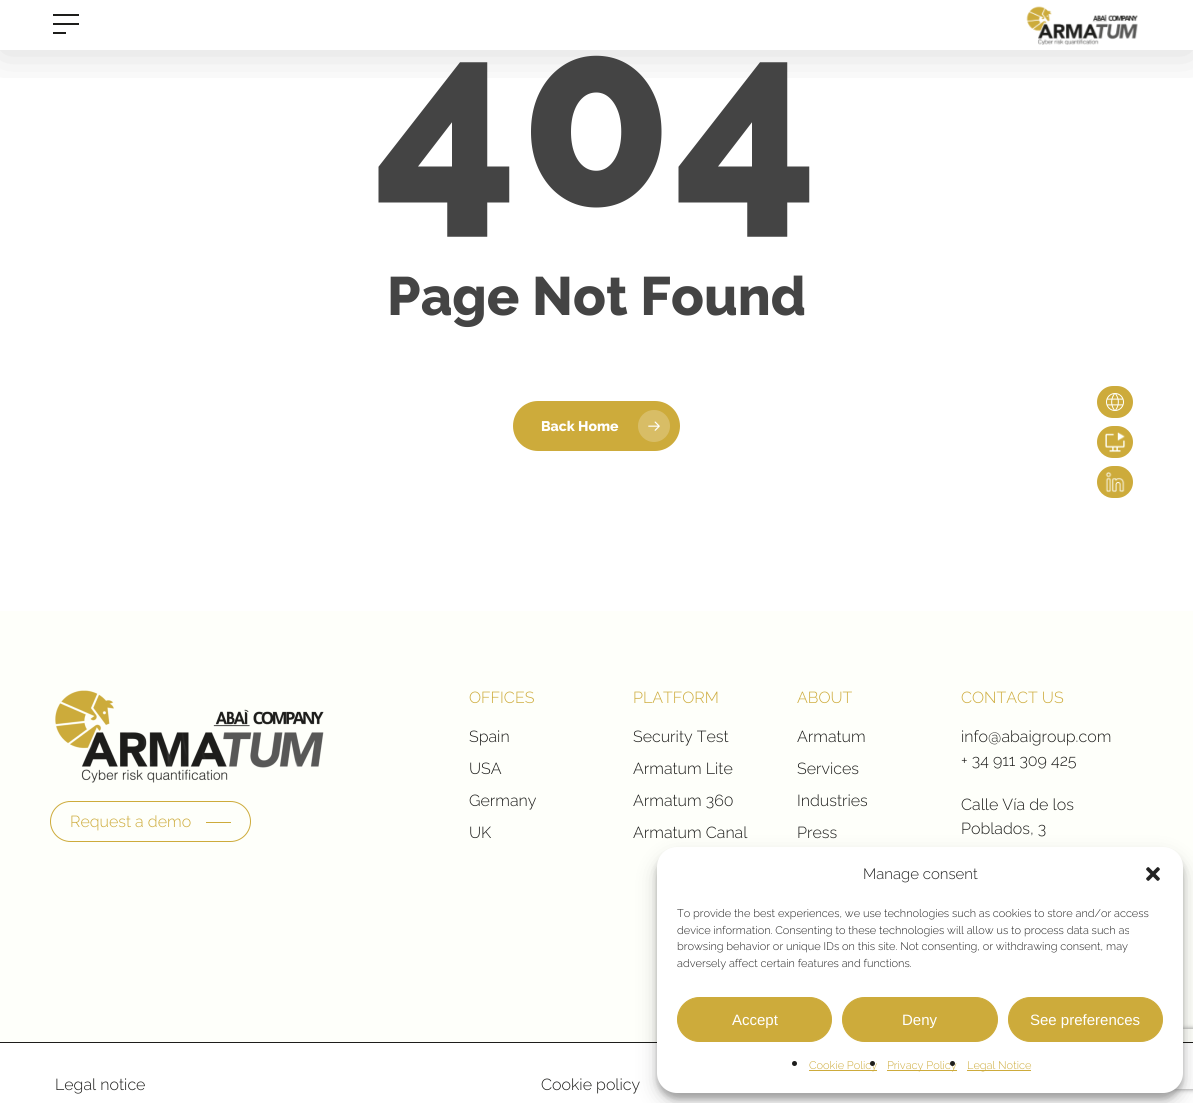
import math
import cairo

surface = cairo.ImageSurface(cairo.FORMAT_RGB24, 1193, 1103)
ctx = cairo.Context(surface)
options = cairo.FontOptions()
options.set_hint_metrics(cairo.HINT_METRICS_OFF)
options.set_hint_style(cairo.HINT_STYLE_NONE)
ctx.set_font_options(options)
ctx.set_miter_limit(4)


def spaced_text(x, y, s, letter, word):
    ctx.move_to(x, y)
    for ch in s:
        ctx.show_text(ch)
        ctx.rel_move_to(letter + word * (ch == ' '), 0)


def round_rect(x, y, w, h, r):
    ctx.new_sub_path()
    for i, (u, v) in enumerate([(x + w - r, y + h - r), (x + r, y + h - r), (x + r, y + r), (x + w - r, y + r)]):
        ctx.arc(u, v, r, i * math.pi / 2, (i + 1) * math.pi / 2)
    ctx.close_path()


def shadow(x, y, w, h, r, blur, alpha):
    ctx.push_group_with_content(cairo.CONTENT_ALPHA)
    ctx.set_operator(cairo.OPERATOR_SOURCE)
    for i in range(15, -16, -2):
        e = blur * i / 6
        if min(w, h) + 2 * e > 0:
            ctx.set_source_rgba(0, 0, 0, alpha * math.erfc((i - 1) / 8.5) / 2)
            round_rect(x - e, y - e, w + 2 * e, h + 2 * e, max(0, min(r + e + blur * .6, min(w, h) / 2 + e)))
            ctx.fill()
    ctx.mask(ctx.pop_group())


def picture(path, x, y, w, h):
    ctx.save()
    ctx.set_source_surface(cairo.ImageSurface.create_from_png(path), x, y)
    ctx.rectangle(x, y, w, h)
    ctx.fill()
    ctx.restore()


ctx.set_source_rgb(1, 1, 1)
ctx.paint()
ctx.save()
ctx.rectangle(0, 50, 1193, 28)
ctx.clip()
ctx.set_source_rgb(0, 0, 0)
shadow(0, 3, 1193, 50, 0, 22.5, 0.15)
ctx.restore()
ctx.set_source_rgb(0.114, 0.114, 0.106)
ctx.rectangle(53, 14, 26, 2)
ctx.fill()
ctx.rectangle(53, 32, 13, 2)
ctx.fill()
ctx.rectangle(53, 23, 26, 2)
ctx.fill()
picture("img1.png", 1026, 6, 112, 39)
ctx.select_font_face("Raleway ExtraBold")
ctx.set_font_size(250)
ctx.set_source_rgb(0.267, 0.267, 0.267)
spaced_text(374, 205, "404", 1, 0)
ctx.set_font_size(54)
ctx.move_to(387, 315)
ctx.show_text("Page Not Found")
ctx.set_source_rgb(0.804, 0.671, 0.231)
round_rect(513, 401, 167, 50, 25)
ctx.fill()
ctx.set_font_size(14)
ctx.set_source_rgb(1, 1, 1)
ctx.move_to(541, 431)
ctx.show_text("Back Home")
ctx.set_source_rgb(0.847, 0.741, 0.4)
ctx.new_path()
ctx.arc(654, 426, 16, 0, 2 * math.pi)
ctx.fill()
picture("img2.png", 648, 421, 12, 10)
ctx.set_source_rgb(0.804, 0.671, 0.231)
round_rect(1097, 386, 36, 32, 16)
ctx.fill()
picture("img3.png", 1106, 393, 18, 18)
round_rect(1097, 426, 36, 32, 16)
ctx.fill()
picture("img4.png", 1105, 432, 21, 21)
round_rect(1097, 466, 36, 32, 16)
ctx.fill()
picture("img5.png", 1105, 472, 20, 21)
ctx.set_source_rgb(0.996, 1, 0.98)
ctx.rectangle(0, 611, 1193, 431)
ctx.fill()
picture("img6.png", 55, 690, 269, 93)
round_rect(50.5, 801.5, 200, 40, 20)
ctx.set_source_rgb(0.804, 0.671, 0.231)
ctx.set_line_width(1)
ctx.stroke()
ctx.select_font_face("Raleway Light")
ctx.set_font_size(16)
ctx.move_to(70, 827)
ctx.show_text("Request a demo")
ctx.rectangle(206, 822, 25, 1)
ctx.fill()
ctx.move_to(469, 703)
ctx.show_text("OFFICES")
ctx.set_source_rgb(0.114, 0.114, 0.106)
ctx.move_to(469, 742)
ctx.show_text("Spain")
ctx.move_to(469, 774)
ctx.show_text("USA")
ctx.move_to(469, 806)
ctx.show_text("Germany")
ctx.move_to(469, 838)
ctx.show_text("UK")
ctx.set_source_rgb(0.804, 0.671, 0.231)
ctx.move_to(633, 703)
ctx.show_text("PLATFORM")
ctx.set_source_rgb(0.114, 0.114, 0.106)
ctx.move_to(633, 742)
ctx.show_text("Security Test")
ctx.move_to(633, 774)
ctx.show_text("Armatum Lite")
ctx.move_to(633, 806)
ctx.show_text("Armatum 360")
ctx.move_to(633, 838)
ctx.show_text("Armatum Canal")
ctx.set_source_rgb(0.804, 0.671, 0.231)
ctx.move_to(797, 703)
ctx.show_text("ABOUT")
ctx.set_source_rgb(0.114, 0.114, 0.106)
ctx.move_to(797, 742)
ctx.show_text("Armatum")
ctx.move_to(797, 774)
ctx.show_text("Services")
ctx.move_to(797, 806)
ctx.show_text("Industries")
ctx.move_to(797, 838)
ctx.show_text("Press")
ctx.set_source_rgb(0.804, 0.671, 0.231)
ctx.move_to(961, 703)
ctx.show_text("CONTACT US")
ctx.set_source_rgb(0.114, 0.114, 0.106)
ctx.move_to(961, 742)
ctx.show_text("info@abaigroup.com")
ctx.move_to(961, 766)
ctx.show_text("+ 34 911 309 425")
ctx.move_to(961, 810)
ctx.show_text("Calle Vía de los")
ctx.move_to(961, 834)
ctx.show_text("Poblados, 3")
ctx.rectangle(0, 1042, 1193, 1)
ctx.fill()
ctx.move_to(55, 1090)
ctx.show_text("Legal notice")
ctx.move_to(541, 1090)
ctx.show_text("Cookie policy")
ctx.set_source_rgb(0, 0, 0)
shadow(657, 853, 526, 246, 20, 3, 0.23)
shadow(657, 857, 526, 246, 20, 10, 0.19)
ctx.save()
ctx.set_fill_rule(cairo.FILL_RULE_EVEN_ODD)
ctx.new_path()
ctx.move_to(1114, 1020)
ctx.line_to(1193, 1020)
ctx.line_to(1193, 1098)
ctx.line_to(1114, 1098)
ctx.close_path()
ctx.move_to(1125, 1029)
ctx.line_to(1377, 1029)
ctx.curve_to(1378, 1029, 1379, 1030, 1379, 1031)
ctx.line_to(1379, 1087)
ctx.curve_to(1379, 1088, 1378, 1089, 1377, 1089)
ctx.line_to(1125, 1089)
ctx.curve_to(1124, 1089, 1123, 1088, 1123, 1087)
ctx.line_to(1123, 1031)
ctx.curve_to(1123, 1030, 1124, 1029, 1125, 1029)
ctx.close_path()
ctx.clip()
ctx.set_source_rgb(0.502, 0.502, 0.502)
shadow(1123, 1029, 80, 60, 2, 2.5, 1)
ctx.restore()
ctx.set_source_rgb(1, 1, 1)
round_rect(657, 847, 526, 246, 20)
ctx.fill()
ctx.set_font_size(15)
ctx.set_source_rgb(0.133, 0.133, 0.133)
ctx.move_to(863, 879)
ctx.show_text("Manage consent")
picture("img7.png", 1146, 867, 14, 14)
ctx.set_font_size(11)
ctx.move_to(677, 917)
ctx.show_text("To provide the best experiences, we use technologies such as cookies to store and/or access")
ctx.move_to(677, 934)
ctx.show_text("device information. Consenting to these technologies will allow us to process data such as")
ctx.move_to(677, 950)
ctx.show_text("browsing behavior or unique IDs on this site. Not consenting, or withdrawing consent, may")
ctx.move_to(677, 967)
ctx.show_text("adversely affect certain features and functions.")
ctx.set_source_rgb(0.804, 0.671, 0.231)
round_rect(677.5, 997.5, 154, 44, 22)
ctx.fill_preserve()
ctx.stroke()
ctx.select_font_face("Liberation Sans")
ctx.set_font_size(15)
ctx.set_source_rgb(1, 1, 1)
ctx.move_to(732, 1025)
ctx.show_text("Accept")
ctx.set_source_rgb(0.804, 0.671, 0.231)
round_rect(842.5, 997.5, 155, 44, 22)
ctx.fill_preserve()
ctx.stroke()
ctx.set_source_rgb(1, 1, 1)
ctx.move_to(902, 1025)
ctx.show_text("Deny")
ctx.set_source_rgb(0.804, 0.671, 0.231)
round_rect(1008.5, 997.5, 154, 44, 22)
ctx.fill_preserve()
ctx.stroke()
ctx.set_source_rgb(1, 1, 1)
ctx.move_to(1030, 1025)
ctx.show_text("See preferences")
ctx.set_source_rgb(0.114, 0.114, 0.106)
ctx.new_path()
ctx.arc(794.5, 1063.5, 2.5, 0, 2 * math.pi)
ctx.fill()
ctx.set_source_rgb(0.804, 0.671, 0.231)
ctx.rectangle(809, 1070, 68, 1)
ctx.fill()
ctx.select_font_face("Raleway Light")
ctx.set_font_size(11)
ctx.move_to(809, 1069)
ctx.show_text("Cookie Policy")
ctx.set_source_rgb(0.114, 0.114, 0.106)
ctx.new_path()
ctx.arc(872.5, 1063.5, 2.5, 0, 2 * math.pi)
ctx.fill()
ctx.set_source_rgb(0.804, 0.671, 0.231)
ctx.rectangle(887, 1070, 70, 1)
ctx.fill()
ctx.move_to(887, 1069)
ctx.show_text("Privacy Policy")
ctx.set_source_rgb(0.114, 0.114, 0.106)
ctx.new_path()
ctx.arc(952.5, 1063.5, 2.5, 0, 2 * math.pi)
ctx.fill()
ctx.set_source_rgb(0.804, 0.671, 0.231)
ctx.rectangle(967, 1070, 64, 1)
ctx.fill()
ctx.move_to(967, 1069)
ctx.show_text("Legal Notice")
surface.write_to_png("page.png")
